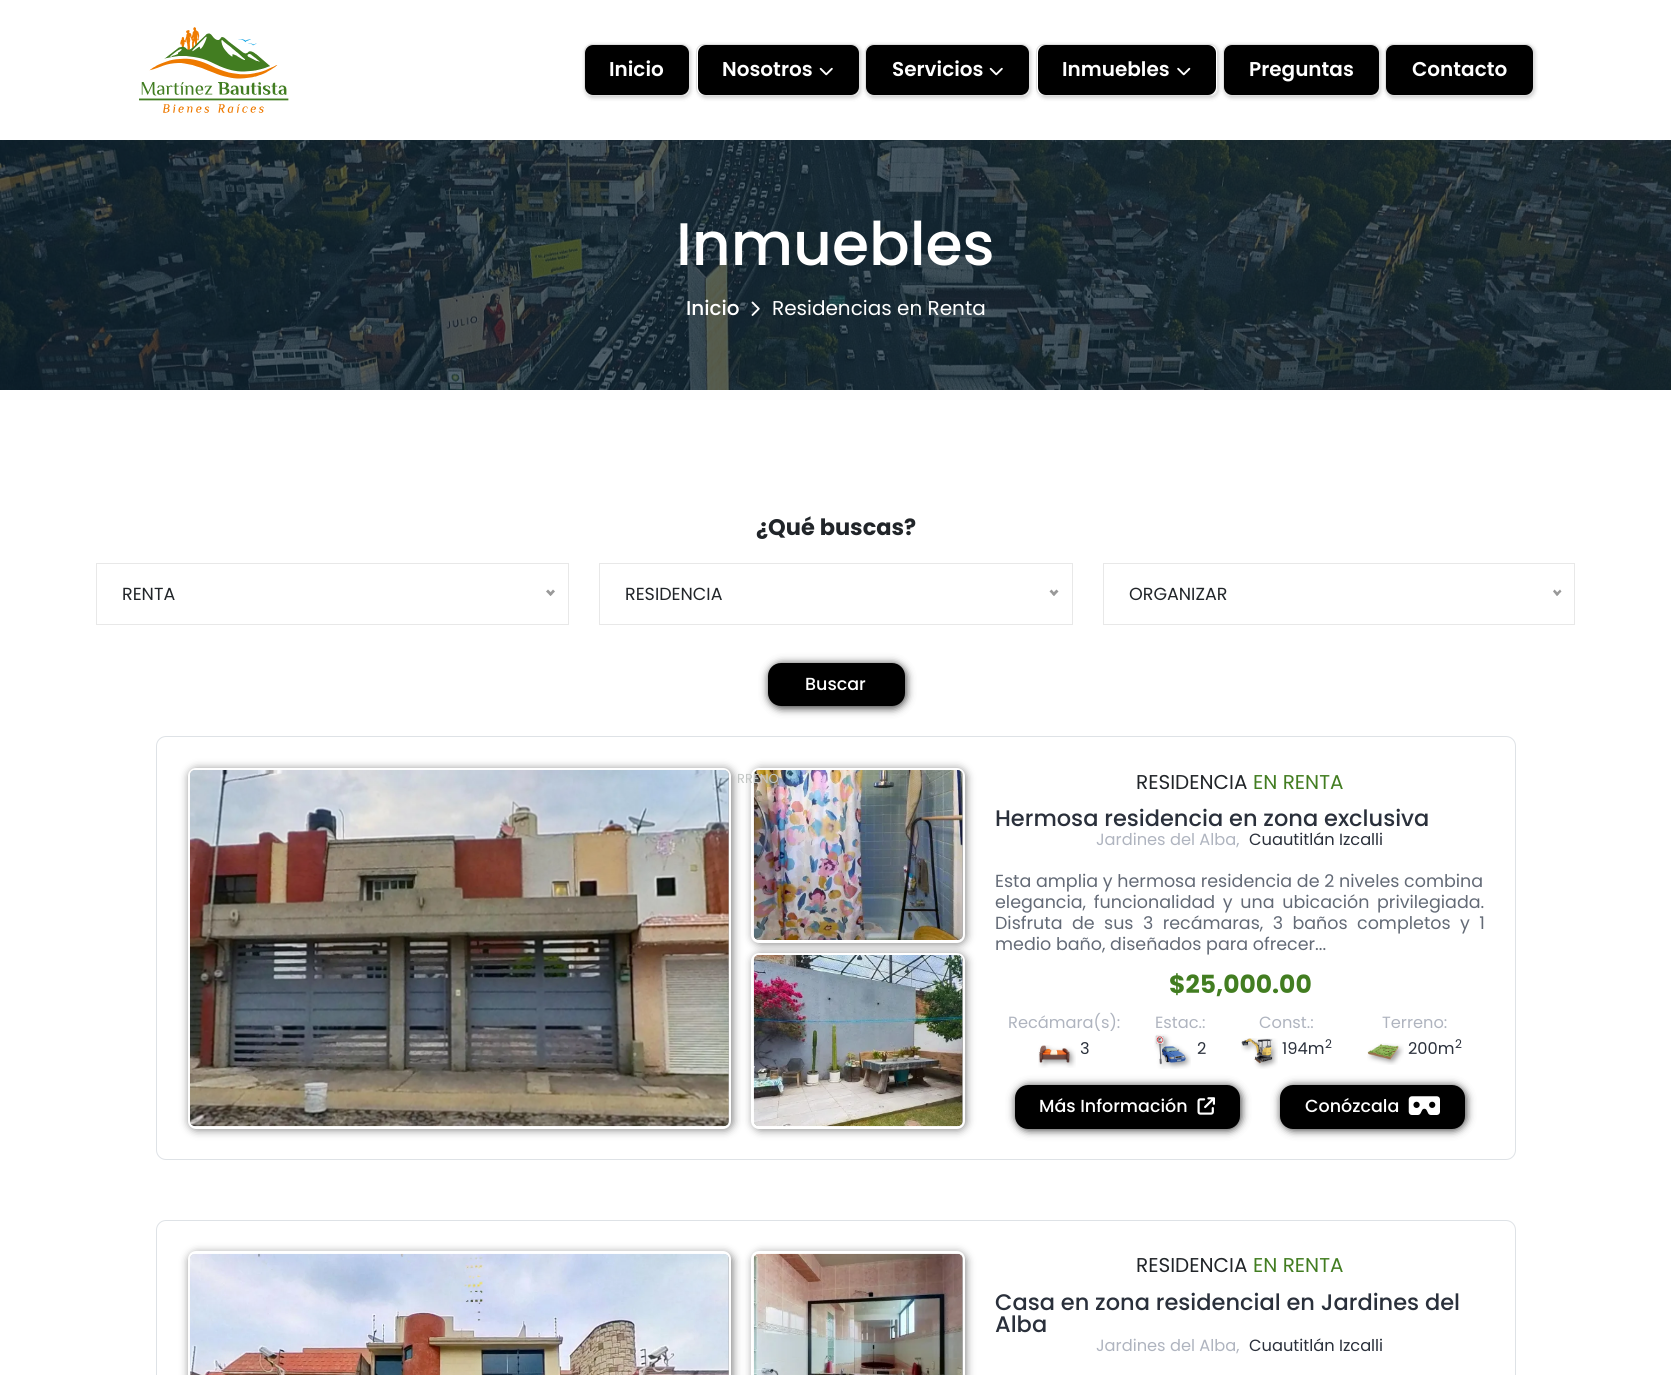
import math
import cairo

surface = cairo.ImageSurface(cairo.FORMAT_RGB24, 1671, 1375)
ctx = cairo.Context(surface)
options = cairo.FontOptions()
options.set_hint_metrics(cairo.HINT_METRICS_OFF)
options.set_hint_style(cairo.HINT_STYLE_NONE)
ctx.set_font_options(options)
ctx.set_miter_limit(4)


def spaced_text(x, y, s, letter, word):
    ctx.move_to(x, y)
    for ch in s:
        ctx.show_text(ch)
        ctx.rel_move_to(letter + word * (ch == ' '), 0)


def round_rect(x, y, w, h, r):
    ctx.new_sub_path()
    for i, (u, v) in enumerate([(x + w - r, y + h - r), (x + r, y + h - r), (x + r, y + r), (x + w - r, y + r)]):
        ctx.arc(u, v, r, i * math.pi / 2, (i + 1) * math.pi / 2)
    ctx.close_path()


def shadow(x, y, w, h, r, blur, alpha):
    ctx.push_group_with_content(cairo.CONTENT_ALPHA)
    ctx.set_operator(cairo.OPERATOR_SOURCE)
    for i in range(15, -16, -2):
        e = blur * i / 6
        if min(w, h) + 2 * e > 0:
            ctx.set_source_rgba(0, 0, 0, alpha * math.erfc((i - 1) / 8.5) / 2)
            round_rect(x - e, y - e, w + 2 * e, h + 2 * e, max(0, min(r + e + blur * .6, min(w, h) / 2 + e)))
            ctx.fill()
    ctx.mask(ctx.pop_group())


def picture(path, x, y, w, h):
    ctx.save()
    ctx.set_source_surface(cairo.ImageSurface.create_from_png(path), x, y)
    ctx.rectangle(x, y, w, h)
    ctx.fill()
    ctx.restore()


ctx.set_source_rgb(1, 1, 1)
ctx.paint()
picture("img1.png", 139, 27, 150, 86)
ctx.save()
ctx.set_fill_rule(cairo.FILL_RULE_EVEN_ODD)
ctx.new_path()
ctx.move_to(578, 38)
ctx.line_to(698, 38)
ctx.line_to(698, 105)
ctx.line_to(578, 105)
ctx.close_path()
ctx.move_to(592, 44)
ctx.line_to(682, 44)
ctx.curve_to(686.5, 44, 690, 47.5, 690, 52)
ctx.line_to(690, 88)
ctx.curve_to(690, 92.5, 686.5, 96, 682, 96)
ctx.line_to(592, 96)
ctx.curve_to(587.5, 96, 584, 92.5, 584, 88)
ctx.line_to(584, 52)
ctx.curve_to(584, 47.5, 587.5, 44, 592, 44)
ctx.close_path()
ctx.clip()
ctx.set_source_rgb(0, 0, 0)
shadow(585, 45, 106, 53, 8, 2, 0.2)
ctx.restore()
round_rect(584.5, 44.5, 105, 51, 7.5)
ctx.set_source_rgb(0.867, 0.867, 0.867)
ctx.set_line_width(1)
ctx.stroke()
ctx.set_source_rgb(0, 0, 0)
round_rect(585, 45, 104, 50, 8)
ctx.fill()
ctx.select_font_face("Poppins SemiBold")
ctx.set_font_size(20)
ctx.set_source_rgb(1, 1, 1)
ctx.move_to(609, 76)
ctx.show_text("Inicio")
ctx.save()
ctx.set_fill_rule(cairo.FILL_RULE_EVEN_ODD)
ctx.new_path()
ctx.move_to(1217, 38)
ctx.line_to(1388, 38)
ctx.line_to(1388, 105)
ctx.line_to(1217, 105)
ctx.close_path()
ctx.move_to(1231, 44)
ctx.line_to(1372, 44)
ctx.curve_to(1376.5, 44, 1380, 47.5, 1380, 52)
ctx.line_to(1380, 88)
ctx.curve_to(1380, 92.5, 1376.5, 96, 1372, 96)
ctx.line_to(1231, 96)
ctx.curve_to(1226.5, 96, 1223, 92.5, 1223, 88)
ctx.line_to(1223, 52)
ctx.curve_to(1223, 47.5, 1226.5, 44, 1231, 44)
ctx.close_path()
ctx.clip()
ctx.set_source_rgb(0, 0, 0)
shadow(1224, 45, 157, 53, 8, 2, 0.2)
ctx.restore()
round_rect(1223.5, 44.5, 156, 51, 7.5)
ctx.set_source_rgb(0.867, 0.867, 0.867)
ctx.stroke()
ctx.set_source_rgb(0, 0, 0)
round_rect(1224, 45, 155, 50, 8)
ctx.fill()
ctx.save()
ctx.set_fill_rule(cairo.FILL_RULE_EVEN_ODD)
ctx.new_path()
ctx.move_to(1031, 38)
ctx.line_to(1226, 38)
ctx.line_to(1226, 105)
ctx.line_to(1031, 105)
ctx.close_path()
ctx.move_to(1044, 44)
ctx.line_to(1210, 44)
ctx.curve_to(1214.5, 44, 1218, 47.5, 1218, 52)
ctx.line_to(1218, 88)
ctx.curve_to(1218, 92.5, 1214.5, 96, 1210, 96)
ctx.line_to(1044, 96)
ctx.curve_to(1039.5, 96, 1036, 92.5, 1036, 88)
ctx.line_to(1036, 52)
ctx.curve_to(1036, 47.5, 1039.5, 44, 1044, 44)
ctx.close_path()
ctx.clip()
ctx.set_source_rgb(0, 0, 0)
shadow(1038, 45, 181, 53, 8, 2, 0.2)
ctx.restore()
round_rect(1036.5, 44.5, 181, 51, 7.5)
ctx.set_source_rgb(0.867, 0.867, 0.867)
ctx.stroke()
ctx.save()
ctx.set_fill_rule(cairo.FILL_RULE_EVEN_ODD)
ctx.new_path()
ctx.move_to(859, 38)
ctx.line_to(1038, 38)
ctx.line_to(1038, 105)
ctx.line_to(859, 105)
ctx.close_path()
ctx.move_to(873, 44)
ctx.line_to(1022, 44)
ctx.curve_to(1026.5, 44, 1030, 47.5, 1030, 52)
ctx.line_to(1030, 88)
ctx.curve_to(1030, 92.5, 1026.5, 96, 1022, 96)
ctx.line_to(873, 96)
ctx.curve_to(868.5, 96, 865, 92.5, 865, 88)
ctx.line_to(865, 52)
ctx.curve_to(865, 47.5, 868.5, 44, 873, 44)
ctx.close_path()
ctx.clip()
ctx.set_source_rgb(0, 0, 0)
shadow(866, 45, 165, 53, 8, 2, 0.2)
ctx.restore()
round_rect(865.5, 44.5, 164, 51, 7.5)
ctx.stroke()
ctx.set_source_rgb(0, 0, 0)
round_rect(866, 45, 163, 50, 8)
ctx.fill()
ctx.save()
ctx.set_fill_rule(cairo.FILL_RULE_EVEN_ODD)
ctx.new_path()
ctx.move_to(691, 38)
ctx.line_to(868, 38)
ctx.line_to(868, 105)
ctx.line_to(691, 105)
ctx.close_path()
ctx.move_to(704, 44)
ctx.line_to(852, 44)
ctx.curve_to(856.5, 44, 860, 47.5, 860, 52)
ctx.line_to(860, 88)
ctx.curve_to(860, 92.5, 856.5, 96, 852, 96)
ctx.line_to(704, 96)
ctx.curve_to(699.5, 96, 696, 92.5, 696, 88)
ctx.line_to(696, 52)
ctx.curve_to(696, 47.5, 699.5, 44, 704, 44)
ctx.close_path()
ctx.clip()
ctx.set_source_rgb(0, 0, 0)
shadow(698, 45, 163, 53, 8, 2, 0.2)
ctx.restore()
round_rect(696.5, 44.5, 163, 51, 7.5)
ctx.set_source_rgb(0.867, 0.867, 0.867)
ctx.stroke()
ctx.set_source_rgb(0, 0, 0)
round_rect(698, 45, 161, 50, 8)
ctx.fill()
ctx.set_source_rgb(1, 1, 1)
ctx.move_to(722, 76)
ctx.show_text("Nosotros")
picture("img2.png", 819, 67, 14, 9)
ctx.move_to(892, 76)
ctx.show_text("Servicios")
picture("img2.png", 989, 67, 14, 9)
ctx.set_source_rgb(0, 0, 0)
round_rect(1038, 45, 178, 50, 8)
ctx.fill()
ctx.set_source_rgb(1, 1, 1)
ctx.move_to(1062, 76)
ctx.show_text("Inmuebles")
picture("img3.png", 1177, 67, 14, 9)
ctx.move_to(1249, 76)
ctx.show_text("Preguntas")
ctx.set_source_rgb(0, 0, 0)
shadow(1386, 45, 149, 53, 8, 2, 0.2)
round_rect(1385.5, 44.5, 148, 51, 7.5)
ctx.set_source_rgb(0.867, 0.867, 0.867)
ctx.stroke()
ctx.set_source_rgb(0, 0, 0)
round_rect(1386, 45, 147, 50, 8)
ctx.fill()
ctx.set_source_rgb(1, 1, 1)
ctx.move_to(1412, 76)
ctx.show_text("Contacto")
picture("img4.png", 0, 140, 1671, 250)
ctx.select_font_face("Poppins Medium")
ctx.set_font_size(60)
ctx.move_to(676, 265)
ctx.show_text("Inmuebles")
ctx.set_font_size(20)
ctx.move_to(686, 315)
ctx.show_text("Inicio")
picture("img5.png", 751, 301, 9, 15)
ctx.select_font_face("Poppins")
ctx.move_to(772, 315)
ctx.show_text("Residencias en Renta")
ctx.select_font_face("Poppins", cairo.FONT_SLANT_NORMAL, cairo.FONT_WEIGHT_BOLD)
ctx.set_font_size(22.5)
ctx.set_source_rgb(0.129, 0.145, 0.161)
ctx.move_to(756, 535)
ctx.show_text("¿Qué buscas?")
ctx.rectangle(96.5, 563.5, 472, 61)
ctx.set_source_rgb(0.91, 0.91, 0.91)
ctx.stroke()
ctx.select_font_face("Poppins")
ctx.set_font_size(17.5)
ctx.set_source_rgb(0.129, 0.145, 0.161)
ctx.move_to(122, 600)
ctx.show_text("RENTA")
ctx.set_source_rgb(0.6, 0.6, 0.6)
ctx.new_path()
ctx.move_to(553, 589.5)
ctx.line_to(555, 591.5)
ctx.line_to(550.5, 596)
ctx.line_to(549, 594)
ctx.close_path()
ctx.fill()
ctx.new_path()
ctx.move_to(548, 589.5)
ctx.line_to(552.5, 594)
ctx.line_to(550.5, 596)
ctx.line_to(546, 591.5)
ctx.close_path()
ctx.fill()
ctx.rectangle(599.5, 563.5, 473, 61)
ctx.set_source_rgb(0.91, 0.91, 0.91)
ctx.stroke()
ctx.set_source_rgb(0.129, 0.145, 0.161)
ctx.move_to(625, 600)
ctx.show_text("RESIDENCIA")
ctx.set_source_rgb(0.6, 0.6, 0.6)
ctx.new_path()
ctx.move_to(1056.5, 589.5)
ctx.line_to(1058.5, 591.5)
ctx.line_to(1054, 596)
ctx.line_to(1052, 594)
ctx.close_path()
ctx.fill()
ctx.new_path()
ctx.move_to(1051.5, 589.5)
ctx.line_to(1055.5, 594)
ctx.line_to(1054, 596)
ctx.line_to(1049.5, 591.5)
ctx.close_path()
ctx.fill()
round_rect(156.5, 736.5, 1359, 423, 9.5)
ctx.set_source_rgb(0.871, 0.886, 0.902)
ctx.stroke()
ctx.set_source_rgb(0.51, 0.51, 0.51)
shadow(189, 769, 544, 361, 8, 4.5, 1)
round_rect(189.5, 769.5, 540, 358, 6.5)
ctx.set_source_rgb(1, 1, 1)
ctx.set_line_width(3)
ctx.stroke()
ctx.save()
round_rect(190, 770, 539, 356, 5)
ctx.clip()
ctx.set_source_rgb(0.51, 0.51, 0.51)
shadow(191, 771, 539, 357, 0, 4.5, 1)
ctx.restore()
ctx.set_source_rgb(0.51, 0.51, 0.51)
shadow(753, 769, 213, 175, 8, 4.5, 1)
round_rect(752.5, 769.5, 211, 172, 6.5)
ctx.set_source_rgb(1, 1, 1)
ctx.stroke()
ctx.save()
round_rect(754, 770, 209, 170, 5)
ctx.clip()
ctx.set_source_rgb(0.51, 0.51, 0.51)
shadow(755, 771, 209, 170, 0, 4.5, 1)
ctx.restore()
picture("img7.png", 753, 770, 210, 170)
ctx.set_font_size(13)
ctx.set_source_rgb(0.761, 0.776, 0.769)
ctx.move_to(737, 783)
ctx.show_text("RRENO")
ctx.rectangle(1103.5, 563.5, 471, 61)
ctx.set_source_rgb(0.91, 0.91, 0.91)
ctx.set_line_width(1)
ctx.stroke()
ctx.set_font_size(17.5)
ctx.set_source_rgb(0.129, 0.145, 0.161)
ctx.move_to(1129, 600)
ctx.show_text("ORGANIZAR")
ctx.set_source_rgb(0.6, 0.6, 0.6)
ctx.new_path()
ctx.move_to(1560, 589.5)
ctx.line_to(1561.5, 591.5)
ctx.line_to(1557, 596)
ctx.line_to(1555.5, 594)
ctx.close_path()
ctx.fill()
ctx.new_path()
ctx.move_to(1554.5, 589.5)
ctx.line_to(1559, 594)
ctx.line_to(1557, 596)
ctx.line_to(1553, 591.5)
ctx.close_path()
ctx.fill()
ctx.set_source_rgb(0, 0, 0)
shadow(769, 664, 137, 44, 13, 4.5, 0.81)
ctx.set_source_rgb(0, 0, 0)
round_rect(768, 663, 137, 43, 13)
ctx.fill()
ctx.select_font_face("Poppins Medium")
ctx.set_source_rgb(1, 1, 1)
ctx.move_to(805, 690)
ctx.show_text("Buscar")
picture("img6.png", 190, 770, 539, 357)
ctx.set_source_rgb(0.51, 0.51, 0.51)
shadow(753, 954, 213, 176, 8, 4.5, 1)
round_rect(752.5, 954.5, 211, 173, 6.5)
ctx.set_source_rgb(1, 1, 1)
ctx.set_line_width(3)
ctx.stroke()
ctx.save()
round_rect(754, 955, 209, 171, 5)
ctx.clip()
ctx.set_source_rgb(0.51, 0.51, 0.51)
shadow(755, 956, 209, 172, 0, 4.5, 1)
ctx.restore()
picture("img8.png", 753, 955, 210, 172)
ctx.select_font_face("Poppins")
ctx.set_font_size(20)
ctx.set_source_rgb(0.129, 0.145, 0.161)
ctx.move_to(1136, 789)
ctx.show_text("RESIDENCIA")
ctx.set_source_rgb(0.259, 0.49, 0.129)
ctx.move_to(1253, 789)
ctx.show_text("EN RENTA")
ctx.select_font_face("Poppins Medium")
ctx.set_font_size(22.5)
ctx.set_source_rgb(0.165, 0.188, 0.231)
ctx.move_to(995, 826)
ctx.show_text("Hermosa residencia en zona exclusiva")
ctx.select_font_face("Poppins")
ctx.set_font_size(16.25)
ctx.set_source_rgb(0.686, 0.706, 0.749)
ctx.move_to(1096, 845)
ctx.show_text("Jardines del Alba,")
ctx.set_source_rgb(0.165, 0.188, 0.231)
ctx.move_to(1249, 845)
ctx.show_text("Cuautitlán Izcalli")
ctx.set_font_size(17.5)
ctx.set_source_rgb(0.388, 0.416, 0.463)
ctx.move_to(995, 887)
ctx.show_text("Esta amplia y hermosa residencia de 2 niveles combina")
spaced_text(995, 908, "elegancia, funcionalidad y una ubicación privilegiada.", 0, 3)
spaced_text(995, 929, "Disfruta de sus 3 recámaras, 3 baños completos y 1", 0, 4.75)
ctx.move_to(995, 950)
ctx.show_text("medio baño, diseñados para ofrecer...")
ctx.select_font_face("Poppins", cairo.FONT_SLANT_NORMAL, cairo.FONT_WEIGHT_BOLD)
ctx.set_font_size(25)
ctx.set_source_rgb(0.259, 0.49, 0.129)
ctx.move_to(1169, 993)
ctx.show_text("$25,000.00")
ctx.select_font_face("Poppins")
ctx.set_font_size(16.25)
ctx.set_source_rgb(0.686, 0.706, 0.749)
ctx.move_to(1008, 1028)
ctx.show_text("Recámara(s):")
picture("img9.png", 1038, 1045, 38, 23)
ctx.set_source_rgb(0.165, 0.188, 0.231)
ctx.move_to(1080, 1054)
ctx.show_text("3")
ctx.set_source_rgb(0.686, 0.706, 0.749)
ctx.move_to(1155, 1028)
ctx.show_text("Estac.:")
picture("img10.png", 1154, 1034, 37, 35)
ctx.set_source_rgb(0.165, 0.188, 0.231)
ctx.move_to(1197, 1054)
ctx.show_text("2")
ctx.set_source_rgb(0.686, 0.706, 0.749)
ctx.move_to(1259, 1028)
ctx.show_text("Const.:")
picture("img11.png", 1241, 1038, 37, 31)
ctx.set_source_rgb(0.165, 0.188, 0.231)
ctx.move_to(1282, 1054)
ctx.show_text("194m")
ctx.set_font_size(12)
ctx.move_to(1325, 1048)
ctx.show_text("2")
ctx.set_font_size(16.25)
ctx.set_source_rgb(0.686, 0.706, 0.749)
ctx.move_to(1382, 1028)
ctx.show_text("Terreno:")
picture("img12.png", 1367, 1043, 37, 22)
ctx.set_source_rgb(0.165, 0.188, 0.231)
ctx.move_to(1408, 1054)
ctx.show_text("200m")
ctx.set_font_size(12)
ctx.move_to(1455, 1048)
ctx.show_text("2")
ctx.set_source_rgb(0, 0, 0)
shadow(1016, 1086, 225, 44, 13, 4.5, 0.81)
ctx.set_source_rgb(0, 0, 0)
round_rect(1015, 1085, 225, 44, 13)
ctx.fill()
ctx.select_font_face("Poppins Medium")
ctx.set_font_size(17.5)
ctx.set_source_rgb(1, 1, 1)
ctx.move_to(1039, 1112)
ctx.show_text("Más Información")
picture("img13.png", 1197, 1097, 18, 18)
ctx.set_source_rgb(0, 0, 0)
shadow(1281, 1086, 185, 44, 13, 4.5, 0.81)
ctx.set_source_rgb(0, 0, 0)
round_rect(1280, 1085, 185, 44, 13)
ctx.fill()
ctx.set_source_rgb(1, 1, 1)
ctx.move_to(1305, 1112)
ctx.show_text("Conózcala")
picture("img14.png", 1408, 1096, 32, 19)
round_rect(156.5, 1220.5, 1359, 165, 9.5)
ctx.set_source_rgb(0.871, 0.886, 0.902)
ctx.set_line_width(1)
ctx.stroke()
ctx.set_source_rgb(0.51, 0.51, 0.51)
shadow(189, 1253, 544, 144, 8, 4.5, 1)
round_rect(189.5, 1252.5, 540, 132, 6.5)
ctx.set_source_rgb(1, 1, 1)
ctx.set_line_width(3)
ctx.stroke()
ctx.save()
round_rect(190, 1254, 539, 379, 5)
ctx.clip()
ctx.set_source_rgb(0.51, 0.51, 0.51)
shadow(191, 1255, 539, 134, 0, 4.5, 1)
ctx.restore()
picture("img15.png", 190, 1253, 539, 122)
ctx.set_source_rgb(0.51, 0.51, 0.51)
shadow(753, 1253, 213, 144, 8, 4.5, 1)
round_rect(752.5, 1252.5, 211, 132, 6.5)
ctx.set_source_rgb(1, 1, 1)
ctx.stroke()
ctx.save()
round_rect(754, 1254, 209, 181, 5)
ctx.clip()
ctx.set_source_rgb(0.51, 0.51, 0.51)
shadow(755, 1255, 209, 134, 0, 4.5, 1)
ctx.restore()
picture("img16.png", 753, 1253, 210, 122)
ctx.select_font_face("Poppins")
ctx.set_font_size(20)
ctx.set_source_rgb(0.129, 0.145, 0.161)
ctx.move_to(1136, 1272)
ctx.show_text("RESIDENCIA")
ctx.set_source_rgb(0.259, 0.49, 0.129)
ctx.move_to(1253, 1272)
ctx.show_text("EN RENTA")
ctx.select_font_face("Poppins Medium")
ctx.set_font_size(22.5)
ctx.set_source_rgb(0.165, 0.188, 0.231)
ctx.move_to(995, 1310)
ctx.show_text("Casa en zona residencial en Jardines del")
ctx.move_to(995, 1332)
ctx.show_text("Alba")
ctx.select_font_face("Poppins")
ctx.set_font_size(16.25)
ctx.set_source_rgb(0.686, 0.706, 0.749)
ctx.move_to(1096, 1351)
ctx.show_text("Jardines del Alba,")
ctx.set_source_rgb(0.165, 0.188, 0.231)
ctx.move_to(1249, 1351)
ctx.show_text("Cuautitlán Izcalli")
surface.write_to_png("page.png")
